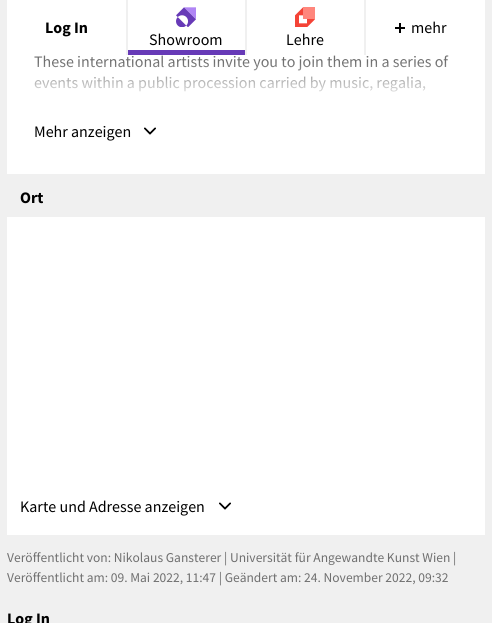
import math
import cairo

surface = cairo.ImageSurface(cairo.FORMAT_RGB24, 492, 623)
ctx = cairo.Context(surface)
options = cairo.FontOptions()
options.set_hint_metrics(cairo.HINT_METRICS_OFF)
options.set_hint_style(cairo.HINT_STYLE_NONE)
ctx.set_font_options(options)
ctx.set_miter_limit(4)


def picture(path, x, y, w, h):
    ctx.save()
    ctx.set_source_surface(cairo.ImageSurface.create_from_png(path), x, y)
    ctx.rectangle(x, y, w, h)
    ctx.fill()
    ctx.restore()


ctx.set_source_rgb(0.941, 0.941, 0.941)
ctx.paint()
ctx.set_source_rgb(1, 1, 1)
ctx.rectangle(7, 0, 478, 174)
ctx.fill()
ctx.select_font_face("Source Sans Pro", cairo.FONT_SLANT_NORMAL, cairo.FONT_WEIGHT_BOLD)
ctx.set_font_size(16)
ctx.set_source_rgb(0, 0, 0)
ctx.move_to(45, 33)
ctx.show_text("Log In")
ctx.set_source_rgb(0.941, 0.941, 0.941)
ctx.rectangle(364, 0, 2, 55)
ctx.fill()
ctx.set_source_rgb(0, 0, 0)
ctx.rectangle(399, 23, 2, 10)
ctx.fill()
ctx.select_font_face("Source Sans Pro")
ctx.move_to(411, 33)
ctx.show_text("mehr")
ctx.rectangle(395, 27, 10, 2)
ctx.fill()
ctx.set_source_rgb(0.404, 0.227, 0.718)
ctx.rectangle(128, 50, 117, 5)
ctx.fill()
ctx.set_source_rgb(0.941, 0.941, 0.941)
ctx.rectangle(126, 0, 2, 55)
ctx.fill()
picture("img1.png", 176, 7, 20, 20)
ctx.set_source_rgb(0, 0, 0)
ctx.move_to(149, 45)
ctx.show_text("Showroom")
ctx.set_source_rgb(0.941, 0.941, 0.941)
ctx.rectangle(245, 0, 2, 55)
ctx.fill()
picture("img2.png", 295, 7, 20, 20)
ctx.set_source_rgb(0, 0, 0)
ctx.move_to(286, 45)
ctx.show_text("Lehre")
ctx.set_source_rgb(0.435, 0.435, 0.435)
ctx.move_to(34, 67)
ctx.show_text("These international artists invite you to join them in a series of")
ctx.move_to(34, 88)
ctx.show_text("events within a public procession carried by music, regalia,")
gradient = cairo.LinearGradient(246, 62, 246, 102)
gradient.add_color_stop_rgba(0, 1, 1, 1, 0)
gradient.add_color_stop_rgba(1, 1, 1, 1, 1)
ctx.set_source(gradient)
ctx.rectangle(34, 63, 412, 29)
ctx.fill()
ctx.set_source_rgb(0, 0, 0)
ctx.move_to(34, 137)
ctx.show_text("Mehr anzeigen")
picture("img3.png", 144, 127, 12, 8)
ctx.select_font_face("Source Sans Pro", cairo.FONT_SLANT_NORMAL, cairo.FONT_WEIGHT_BOLD)
ctx.move_to(20, 203)
ctx.show_text("Ort")
ctx.set_source_rgb(1, 1, 1)
ctx.rectangle(7, 217, 478, 318)
ctx.fill()
ctx.select_font_face("Source Sans Pro")
ctx.set_source_rgb(0, 0, 0)
ctx.move_to(20, 512)
ctx.show_text("Karte und Adresse anzeigen")
picture("img3.png", 219, 502, 12, 8)
ctx.set_font_size(13.5)
ctx.set_source_rgb(0.435, 0.435, 0.435)
ctx.move_to(7, 562)
ctx.show_text("Veröffentlicht von: Nikolaus Gansterer | Universität für Angewandte Kunst Wien |")
ctx.move_to(7, 582)
ctx.show_text("Veröffentlicht am: 09. Mai 2022, 11:47 | Geändert am: 24. November 2022, 09:32")
ctx.select_font_face("Source Sans Pro", cairo.FONT_SLANT_NORMAL, cairo.FONT_WEIGHT_BOLD)
ctx.set_font_size(16)
ctx.set_source_rgb(0, 0, 0)
ctx.move_to(7, 624)
ctx.show_text("Log In")
surface.write_to_png("page.png")
